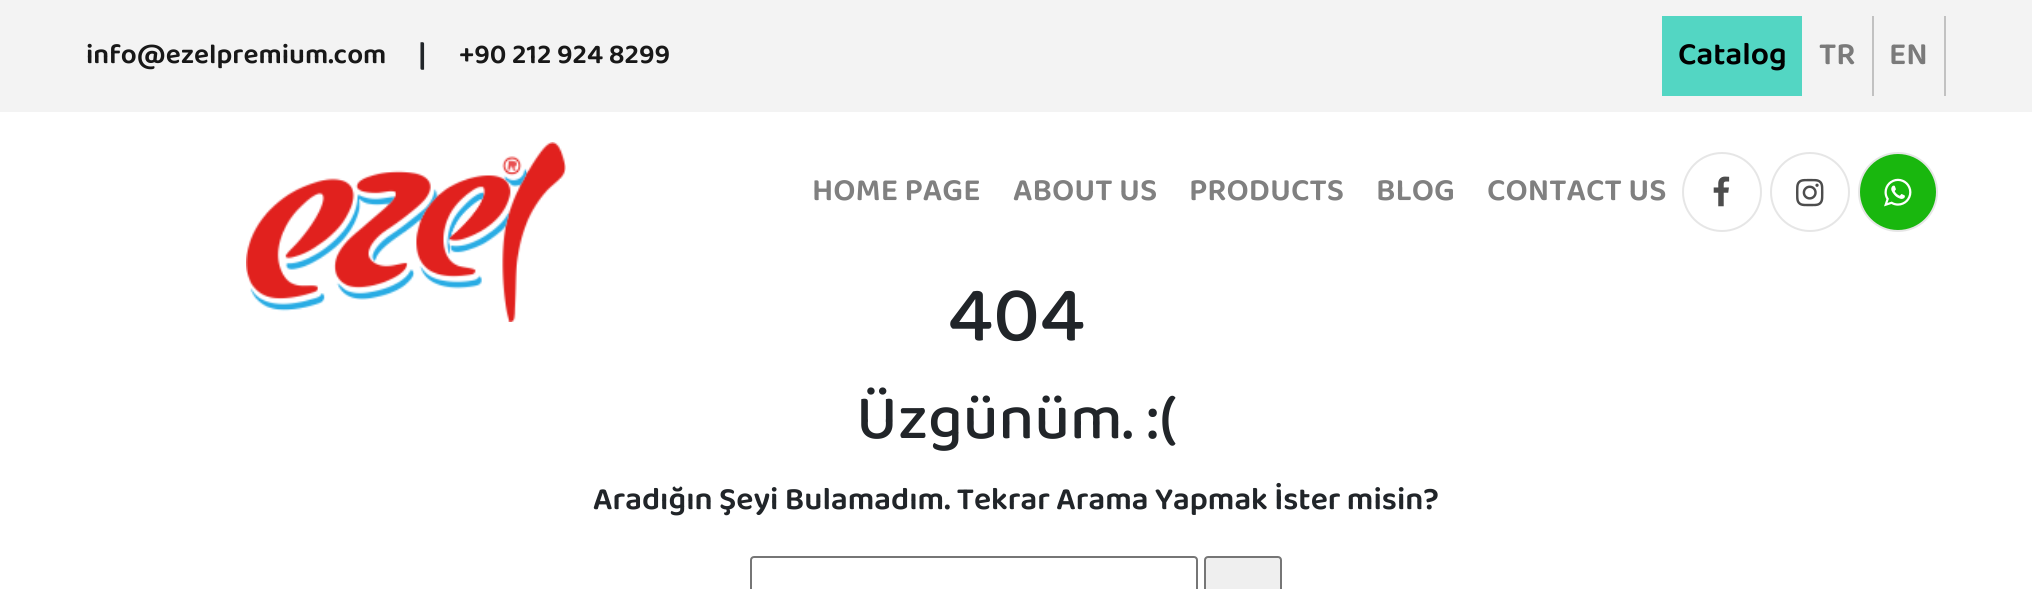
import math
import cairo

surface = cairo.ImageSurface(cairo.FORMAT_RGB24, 2032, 589)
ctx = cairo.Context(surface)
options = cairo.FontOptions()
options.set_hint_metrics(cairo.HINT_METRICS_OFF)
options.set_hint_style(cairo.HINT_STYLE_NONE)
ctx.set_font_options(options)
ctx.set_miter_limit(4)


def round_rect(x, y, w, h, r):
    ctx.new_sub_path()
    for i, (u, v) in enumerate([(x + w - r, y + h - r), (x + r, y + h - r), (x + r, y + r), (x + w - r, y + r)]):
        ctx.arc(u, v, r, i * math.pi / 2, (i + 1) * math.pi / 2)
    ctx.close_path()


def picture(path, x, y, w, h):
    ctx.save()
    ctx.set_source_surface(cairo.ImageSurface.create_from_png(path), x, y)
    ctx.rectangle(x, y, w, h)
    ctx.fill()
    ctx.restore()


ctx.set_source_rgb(1, 1, 1)
ctx.paint()
ctx.set_source_rgb(0.953, 0.953, 0.953)
ctx.rectangle(0, 0, 2032, 112)
ctx.fill()
ctx.select_font_face("Baloo Bhai 2 SemiBold")
ctx.set_font_size(28)
ctx.set_source_rgb(0.094, 0.094, 0.094)
ctx.move_to(86, 63)
ctx.show_text("info@ezelpremium.com")
ctx.set_font_size(32)
ctx.set_source_rgb(0.129, 0.145, 0.161)
ctx.move_to(418, 64)
ctx.show_text("|")
ctx.set_font_size(28)
ctx.set_source_rgb(0.094, 0.094, 0.094)
ctx.move_to(459, 63)
ctx.show_text("+90 212 924 8299")
ctx.set_source_rgb(0.325, 0.839, 0.765)
ctx.rectangle(1662, 16, 140, 80)
ctx.fill()
ctx.set_font_size(32)
ctx.set_source_rgb(0, 0, 0)
ctx.move_to(1678, 64)
ctx.show_text("Catalog")
ctx.set_source_rgb(0.478, 0.478, 0.478)
ctx.move_to(1819, 64)
ctx.show_text("TR")
ctx.set_source_rgb(0.757, 0.757, 0.757)
ctx.rectangle(1872, 16, 2, 80)
ctx.fill()
ctx.set_source_rgb(0.478, 0.478, 0.478)
ctx.move_to(1889, 64)
ctx.show_text("EN")
ctx.set_source_rgb(0.757, 0.757, 0.757)
ctx.rectangle(1944, 16, 2, 80)
ctx.fill()
picture("img1.png", 246, 142, 320, 180)
ctx.set_source_rgb(0.502, 0.502, 0.502)
ctx.move_to(812, 200)
ctx.show_text("HOME PAGE")
ctx.move_to(1013, 200)
ctx.show_text("ABOUT US")
ctx.move_to(1189, 200)
ctx.show_text("PRODUCTS")
ctx.move_to(1376, 200)
ctx.show_text("BLOG")
ctx.move_to(1487, 200)
ctx.show_text("CONTACT US")
ctx.new_path()
ctx.arc(1722, 192, 39, 0, 2 * math.pi)
ctx.set_source_rgb(0.902, 0.902, 0.902)
ctx.stroke()
picture("img2.png", 1713, 176, 17, 31)
ctx.arc(1810, 192, 39, 0, 2 * math.pi)
ctx.stroke()
picture("img3.png", 1796, 178, 28, 29)
ctx.set_source_rgb(0.098, 0.718, 0.055)
ctx.arc(1898, 192, 39, 0, 2 * math.pi)
ctx.fill_preserve()
ctx.set_source_rgb(0.902, 0.902, 0.902)
ctx.stroke()
picture("img4.png", 1884, 178, 28, 29)
ctx.select_font_face("Baloo Bhai 2 Medium")
ctx.set_font_size(80)
ctx.set_source_rgb(0.129, 0.145, 0.161)
ctx.move_to(948, 340)
ctx.show_text("404")
ctx.set_font_size(64)
ctx.move_to(856, 438)
ctx.show_text("Üzgünüm. :(")
ctx.select_font_face("Baloo Bhai 2 SemiBold")
ctx.set_font_size(32)
ctx.move_to(593, 509)
ctx.show_text("Aradığın Şeyi Bulamadım. Tekrar Arama Yapmak İster misin?")
round_rect(751, 557, 446, 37, 3)
ctx.set_source_rgb(0.463, 0.463, 0.463)
ctx.stroke()
ctx.set_source_rgb(0.937, 0.937, 0.937)
round_rect(1205, 557, 76, 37, 3)
ctx.fill_preserve()
ctx.set_source_rgb(0.463, 0.463, 0.463)
ctx.stroke()
surface.write_to_png("page.png")
